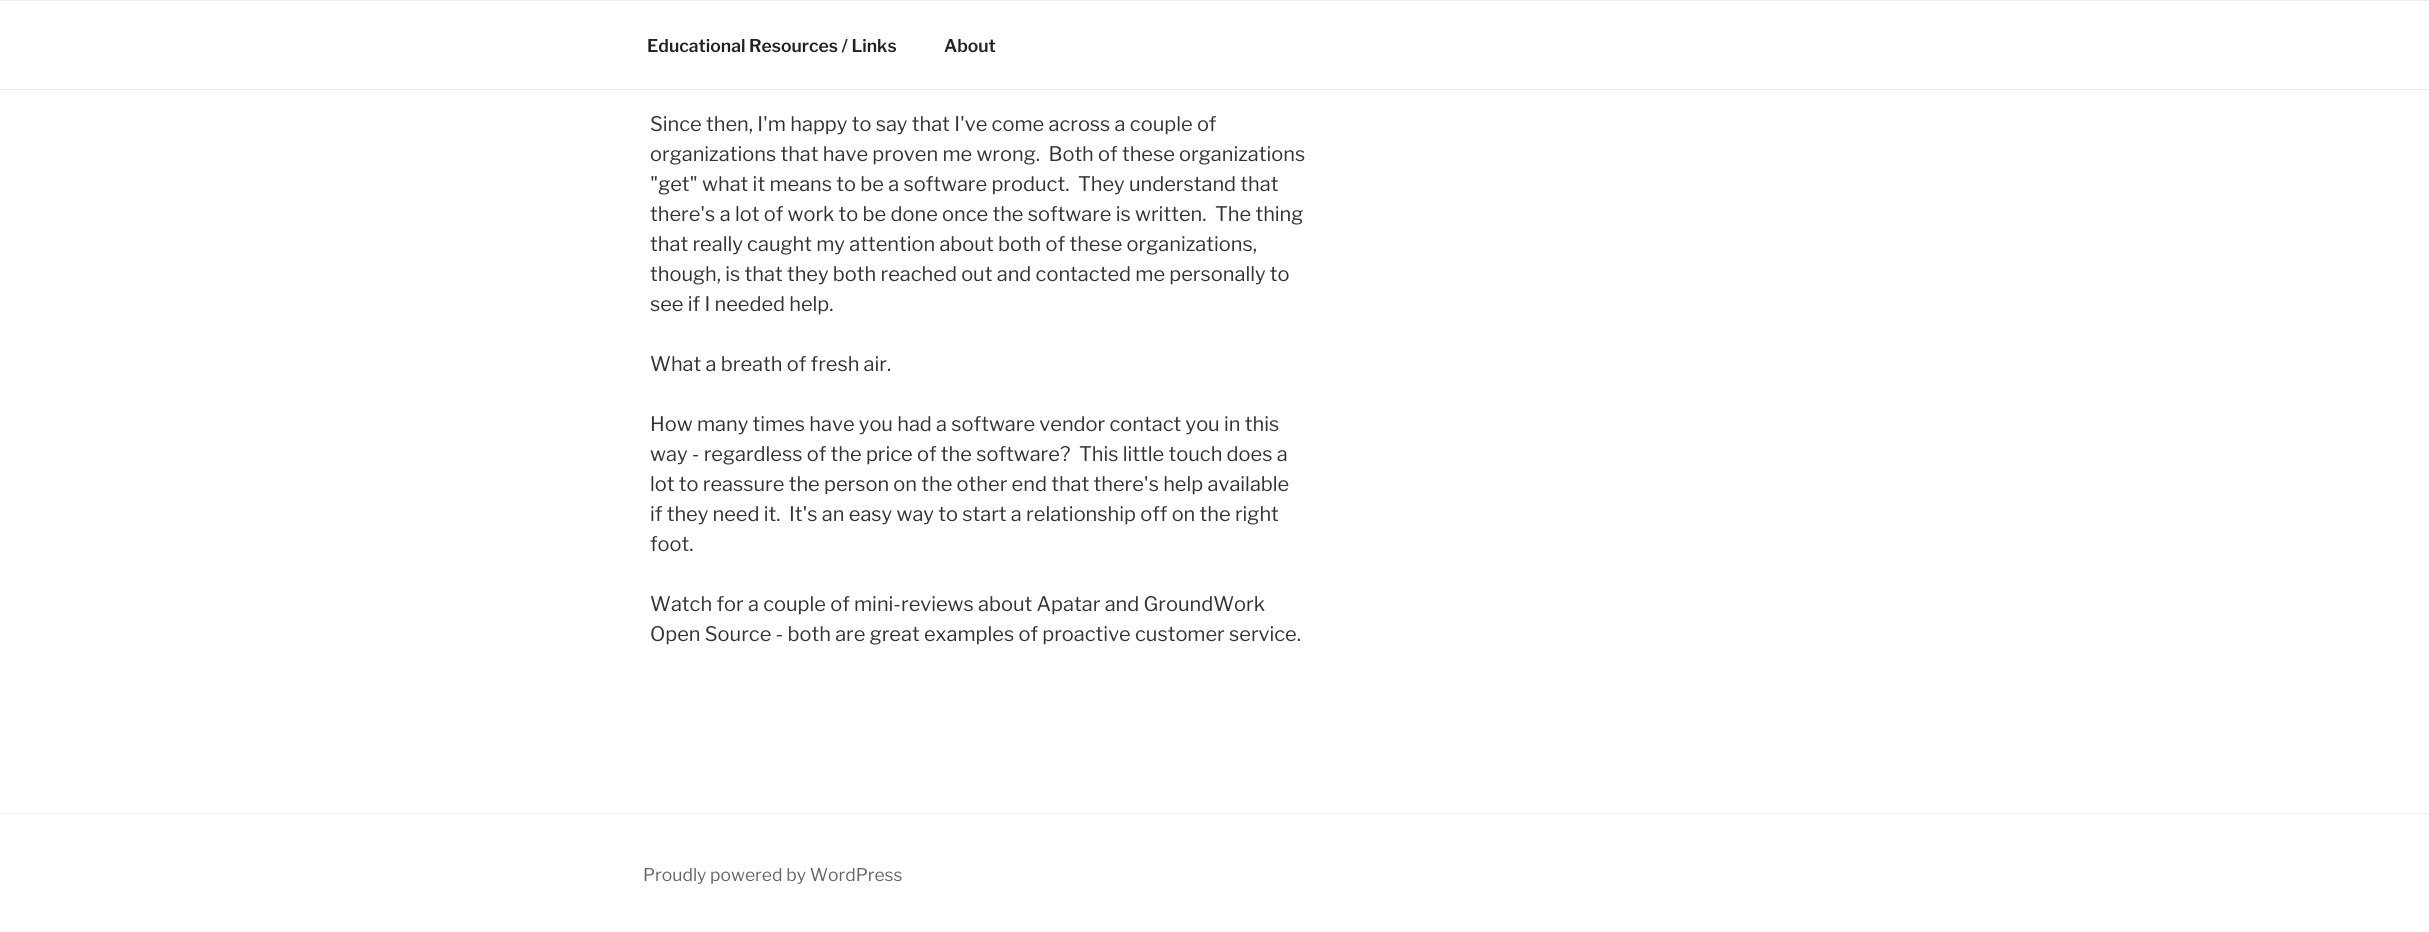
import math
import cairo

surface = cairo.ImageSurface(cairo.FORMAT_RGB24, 2429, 932)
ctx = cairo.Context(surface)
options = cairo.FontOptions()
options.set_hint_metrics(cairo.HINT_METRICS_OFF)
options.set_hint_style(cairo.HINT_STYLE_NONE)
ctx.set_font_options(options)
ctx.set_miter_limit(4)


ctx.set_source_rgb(1, 1, 1)
ctx.paint()
ctx.set_source_rgb(0.933, 0.933, 0.933)
ctx.rectangle(0, 0, 2429, 1)
ctx.fill()
ctx.rectangle(0, 89, 2429, 1)
ctx.fill()
ctx.select_font_face("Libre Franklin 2 Thin")
ctx.set_font_size(17.5)
ctx.set_source_rgb(0.133, 0.133, 0.133)
ctx.move_to(647, 52)
ctx.show_text("Educational Resources / Links")
ctx.move_to(944, 52)
ctx.show_text("About")
ctx.select_font_face("Libre Franklin Thin")
ctx.set_font_size(20)
ctx.set_source_rgb(0.2, 0.2, 0.2)
ctx.move_to(650, 131)
ctx.show_text("Since then, I'm happy to say that I've come across a couple of")
ctx.move_to(650, 161)
ctx.show_text("organizations that have proven me wrong.  Both of these organizations")
ctx.move_to(650, 191)
ctx.show_text("\"get\" what it means to be a software product.  They understand that")
ctx.move_to(650, 221)
ctx.show_text("there's a lot of work to be done once the software is written.  The thing")
ctx.move_to(650, 251)
ctx.show_text("that really caught my attention about both of these organizations,")
ctx.move_to(650, 281)
ctx.show_text("though, is that they both reached out and contacted me personally to")
ctx.move_to(650, 311)
ctx.show_text("see if I needed help.")
ctx.move_to(650, 371)
ctx.show_text("What a breath of fresh air.")
ctx.move_to(650, 431)
ctx.show_text("How many times have you had a software vendor contact you in this")
ctx.move_to(650, 461)
ctx.show_text("way - regardless of the price of the software?  This little touch does a")
ctx.move_to(650, 491)
ctx.show_text("lot to reassure the person on the other end that there's help available")
ctx.move_to(650, 521)
ctx.show_text("if they need it.  It's an easy way to start a relationship off on the right")
ctx.move_to(650, 551)
ctx.show_text("foot.")
ctx.move_to(650, 611)
ctx.show_text("Watch for a couple of mini-reviews about Apatar and GroundWork")
ctx.move_to(650, 641)
ctx.show_text("Open Source - both are great examples of proactive customer service.")
ctx.set_source_rgb(0.933, 0.933, 0.933)
ctx.rectangle(0, 813, 2429, 1)
ctx.fill()
ctx.set_font_size(17.5)
ctx.set_source_rgb(0.4, 0.4, 0.4)
ctx.move_to(643, 881)
ctx.show_text("Proudly powered by WordPress")
surface.write_to_png("page.png")
